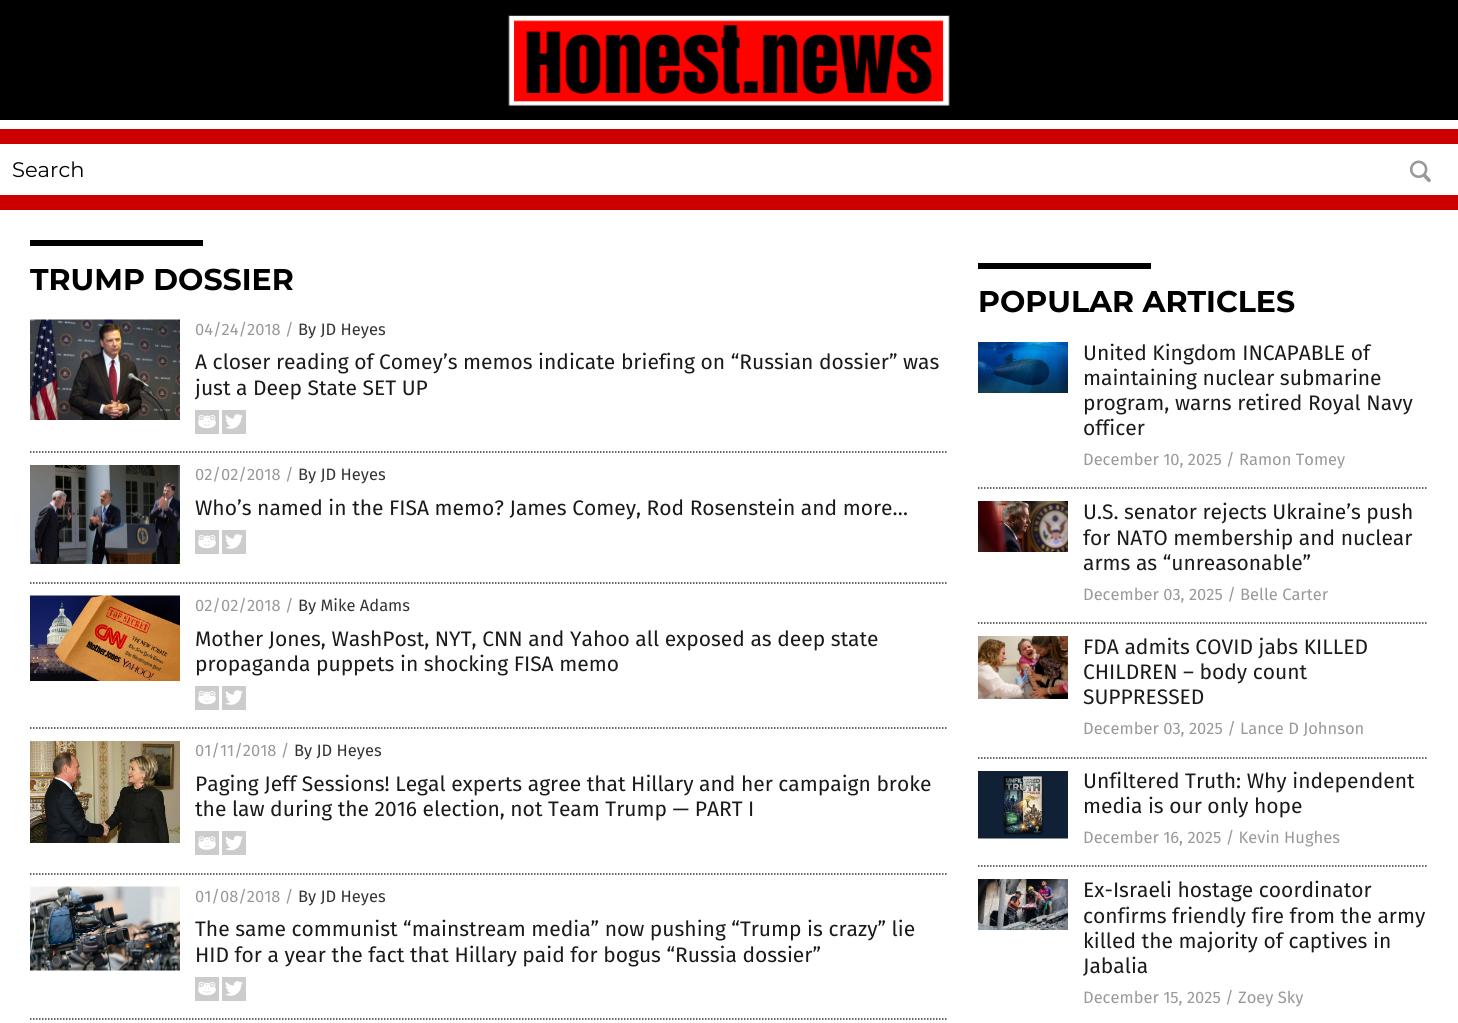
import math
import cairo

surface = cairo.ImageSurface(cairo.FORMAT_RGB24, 1458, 1023)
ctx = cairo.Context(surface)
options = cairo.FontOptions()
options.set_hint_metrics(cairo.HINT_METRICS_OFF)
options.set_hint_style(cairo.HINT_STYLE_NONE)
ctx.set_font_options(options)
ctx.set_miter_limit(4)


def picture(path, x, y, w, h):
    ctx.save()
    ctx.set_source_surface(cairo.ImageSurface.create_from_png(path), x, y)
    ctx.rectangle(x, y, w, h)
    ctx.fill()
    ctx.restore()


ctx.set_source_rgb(0.8, 0, 0)
ctx.paint()
ctx.set_source_rgb(0, 0, 0)
ctx.rectangle(0, 0, 1458, 120)
ctx.fill()
picture("img1.png", 508, 15, 442, 91)
ctx.set_source_rgb(1, 1, 1)
ctx.rectangle(0, 120, 1458, 9)
ctx.fill()
ctx.rectangle(0, 144, 1458, 51)
ctx.fill()
ctx.select_font_face("Montserrat")
ctx.set_font_size(21)
ctx.set_source_rgb(0, 0, 0)
ctx.move_to(12, 177)
ctx.show_text("Search")
picture("img2.png", 1409, 160, 22, 23)
ctx.set_source_rgb(1, 1, 1)
ctx.rectangle(0, 210, 1458, 813)
ctx.fill()
ctx.set_source_rgb(0, 0, 0)
ctx.rectangle(30, 240, 173, 6)
ctx.fill()
ctx.select_font_face("Montserrat", cairo.FONT_SLANT_NORMAL, cairo.FONT_WEIGHT_BOLD)
ctx.set_font_size(30)
ctx.move_to(30, 290)
ctx.show_text("TRUMP DOSSIER")
ctx.new_path()
ctx.move_to(30, 452)
ctx.line_to(948, 452)
ctx.set_source_rgb(0.204, 0.204, 0.204)
ctx.set_line_width(1.5)
ctx.set_dash([1.5, 1.5])
ctx.stroke()
picture("img3.png", 30, 319, 150, 101)
ctx.select_font_face("Fira Sans")
ctx.set_font_size(16.5)
ctx.set_source_rgb(0.6, 0.6, 0.6)
ctx.move_to(195, 335)
ctx.show_text("04/24/2018 /")
ctx.set_source_rgb(0.2, 0.2, 0.2)
ctx.move_to(298, 335)
ctx.show_text("By JD Heyes")
ctx.set_font_size(21)
ctx.set_source_rgb(0.102, 0.102, 0.102)
ctx.move_to(195, 369)
ctx.show_text("A closer reading of Comey’s memos indicate briefing on “Russian dossier” was")
ctx.move_to(195, 395)
ctx.show_text("just a Deep State SET UP")
picture("img4.png", 195, 410, 24, 24)
picture("img5.png", 222, 410, 24, 24)
ctx.new_path()
ctx.move_to(30, 583)
ctx.line_to(948, 583)
ctx.set_source_rgb(0.204, 0.204, 0.204)
ctx.stroke()
picture("img6.png", 30, 465, 150, 99)
ctx.set_font_size(16.5)
ctx.set_source_rgb(0.6, 0.6, 0.6)
ctx.move_to(195, 480)
ctx.show_text("02/02/2018 /")
ctx.set_source_rgb(0.2, 0.2, 0.2)
ctx.move_to(298, 480)
ctx.show_text("By JD Heyes")
ctx.set_font_size(21)
ctx.set_source_rgb(0.102, 0.102, 0.102)
ctx.move_to(195, 515)
ctx.show_text("Who’s named in the FISA memo? James Comey, Rod Rosenstein and more…")
picture("img4.png", 195, 530, 24, 24)
picture("img5.png", 222, 530, 24, 24)
ctx.new_path()
ctx.move_to(30, 728)
ctx.line_to(948, 728)
ctx.set_source_rgb(0.204, 0.204, 0.204)
ctx.stroke()
picture("img7.png", 30, 595, 150, 86)
ctx.set_font_size(16.5)
ctx.set_source_rgb(0.6, 0.6, 0.6)
ctx.move_to(195, 611)
ctx.show_text("02/02/2018 /")
ctx.set_source_rgb(0.2, 0.2, 0.2)
ctx.move_to(298, 611)
ctx.show_text("By Mike Adams")
ctx.set_font_size(21)
ctx.set_source_rgb(0.102, 0.102, 0.102)
ctx.move_to(195, 646)
ctx.show_text("Mother Jones, WashPost, NYT, CNN and Yahoo all exposed as deep state")
ctx.move_to(195, 671)
ctx.show_text("propaganda puppets in shocking FISA memo")
picture("img4.png", 195, 686, 24, 24)
picture("img5.png", 222, 686, 24, 24)
ctx.new_path()
ctx.move_to(30, 874)
ctx.line_to(948, 874)
ctx.set_source_rgb(0.204, 0.204, 0.204)
ctx.stroke()
picture("img8.png", 30, 741, 150, 102)
ctx.set_font_size(16.5)
ctx.set_source_rgb(0.6, 0.6, 0.6)
ctx.move_to(195, 756)
ctx.show_text("01/11/2018 /")
ctx.set_source_rgb(0.2, 0.2, 0.2)
ctx.move_to(294, 756)
ctx.show_text("By JD Heyes")
ctx.set_font_size(21)
ctx.set_source_rgb(0.102, 0.102, 0.102)
ctx.move_to(195, 791)
ctx.show_text("Paging Jeff Sessions! Legal experts agree that Hillary and her campaign broke")
ctx.move_to(195, 816)
ctx.show_text("the law during the 2016 election, not Team Trump — PART I")
picture("img9.png", 195, 831, 24, 24)
picture("img10.png", 222, 831, 24, 24)
ctx.new_path()
ctx.move_to(30, 1019)
ctx.line_to(948, 1019)
ctx.set_source_rgb(0.204, 0.204, 0.204)
ctx.stroke()
picture("img11.png", 30, 886, 150, 85)
ctx.set_font_size(16.5)
ctx.set_source_rgb(0.6, 0.6, 0.6)
ctx.move_to(195, 902)
ctx.show_text("01/08/2018 /")
ctx.set_source_rgb(0.2, 0.2, 0.2)
ctx.move_to(298, 902)
ctx.show_text("By JD Heyes")
ctx.set_font_size(21)
ctx.set_source_rgb(0.102, 0.102, 0.102)
ctx.move_to(195, 936)
ctx.show_text("The same communist “mainstream media” now pushing “Trump is crazy” lie")
ctx.move_to(195, 962)
ctx.show_text("HID for a year the fact that Hillary paid for bogus “Russia dossier”")
picture("img4.png", 195, 977, 24, 24)
picture("img5.png", 222, 977, 24, 24)
ctx.set_source_rgb(0, 0, 0)
ctx.rectangle(978, 263, 173, 6)
ctx.fill()
ctx.select_font_face("Montserrat", cairo.FONT_SLANT_NORMAL, cairo.FONT_WEIGHT_BOLD)
ctx.set_font_size(30)
ctx.move_to(978, 312)
ctx.show_text("POPULAR ARTICLES")
ctx.new_path()
ctx.move_to(978, 488)
ctx.line_to(1428, 488)
ctx.set_source_rgb(0.204, 0.204, 0.204)
ctx.stroke()
picture("img12.png", 978, 342, 90, 51)
ctx.select_font_face("Fira Sans")
ctx.set_font_size(21)
ctx.set_source_rgb(0.102, 0.102, 0.102)
ctx.move_to(1083, 360)
ctx.show_text("United Kingdom INCAPABLE of")
ctx.move_to(1083, 385)
ctx.show_text("maintaining nuclear submarine")
ctx.move_to(1083, 410)
ctx.show_text("program, warns retired Royal Navy")
ctx.move_to(1083, 435)
ctx.show_text("officer")
ctx.set_font_size(16.5)
ctx.set_source_rgb(0.6, 0.6, 0.6)
ctx.move_to(1083, 465)
ctx.show_text("December 10, 2025 / Ramon Tomey")
ctx.new_path()
ctx.move_to(978, 623)
ctx.line_to(1428, 623)
ctx.set_source_rgb(0.204, 0.204, 0.204)
ctx.stroke()
picture("img13.png", 978, 501, 90, 51)
ctx.set_font_size(21)
ctx.set_source_rgb(0.102, 0.102, 0.102)
ctx.move_to(1083, 519)
ctx.show_text("U.S. senator rejects Ukraine’s push")
ctx.move_to(1083, 545)
ctx.show_text("for NATO membership and nuclear")
ctx.move_to(1083, 570)
ctx.show_text("arms as “unreasonable”")
ctx.set_font_size(16.5)
ctx.set_source_rgb(0.6, 0.6, 0.6)
ctx.move_to(1083, 600)
ctx.show_text("December 03, 2025 / Belle Carter")
ctx.new_path()
ctx.move_to(978, 758)
ctx.line_to(1428, 758)
ctx.set_source_rgb(0.204, 0.204, 0.204)
ctx.stroke()
picture("img14.png", 978, 636, 90, 63)
ctx.set_font_size(21)
ctx.set_source_rgb(0.102, 0.102, 0.102)
ctx.move_to(1083, 654)
ctx.show_text("FDA admits COVID jabs KILLED")
ctx.move_to(1083, 679)
ctx.show_text("CHILDREN – body count")
ctx.move_to(1083, 704)
ctx.show_text("SUPPRESSED")
ctx.set_font_size(16.5)
ctx.set_source_rgb(0.6, 0.6, 0.6)
ctx.move_to(1083, 734)
ctx.show_text("December 03, 2025 / Lance D Johnson")
ctx.new_path()
ctx.move_to(978, 866)
ctx.line_to(1428, 866)
ctx.set_source_rgb(0.204, 0.204, 0.204)
ctx.stroke()
picture("img15.png", 978, 771, 90, 68)
ctx.set_font_size(21)
ctx.set_source_rgb(0.102, 0.102, 0.102)
ctx.move_to(1083, 788)
ctx.show_text("Unfiltered Truth: Why independent")
ctx.move_to(1083, 813)
ctx.show_text("media is our only hope")
ctx.set_font_size(16.5)
ctx.set_source_rgb(0.6, 0.6, 0.6)
ctx.move_to(1083, 843)
ctx.show_text("December 16, 2025 / Kevin Hughes")
picture("img16.png", 978, 879, 90, 51)
ctx.set_font_size(21)
ctx.set_source_rgb(0.102, 0.102, 0.102)
ctx.move_to(1083, 897)
ctx.show_text("Ex-Israeli hostage coordinator")
ctx.move_to(1083, 923)
ctx.show_text("confirms friendly fire from the army")
ctx.move_to(1083, 948)
ctx.show_text("killed the majority of captives in")
ctx.move_to(1083, 973)
ctx.show_text("Jabalia")
ctx.set_font_size(16.5)
ctx.set_source_rgb(0.6, 0.6, 0.6)
ctx.move_to(1083, 1003)
ctx.show_text("December 15, 2025 / Zoey Sky")
surface.write_to_png("page.png")
